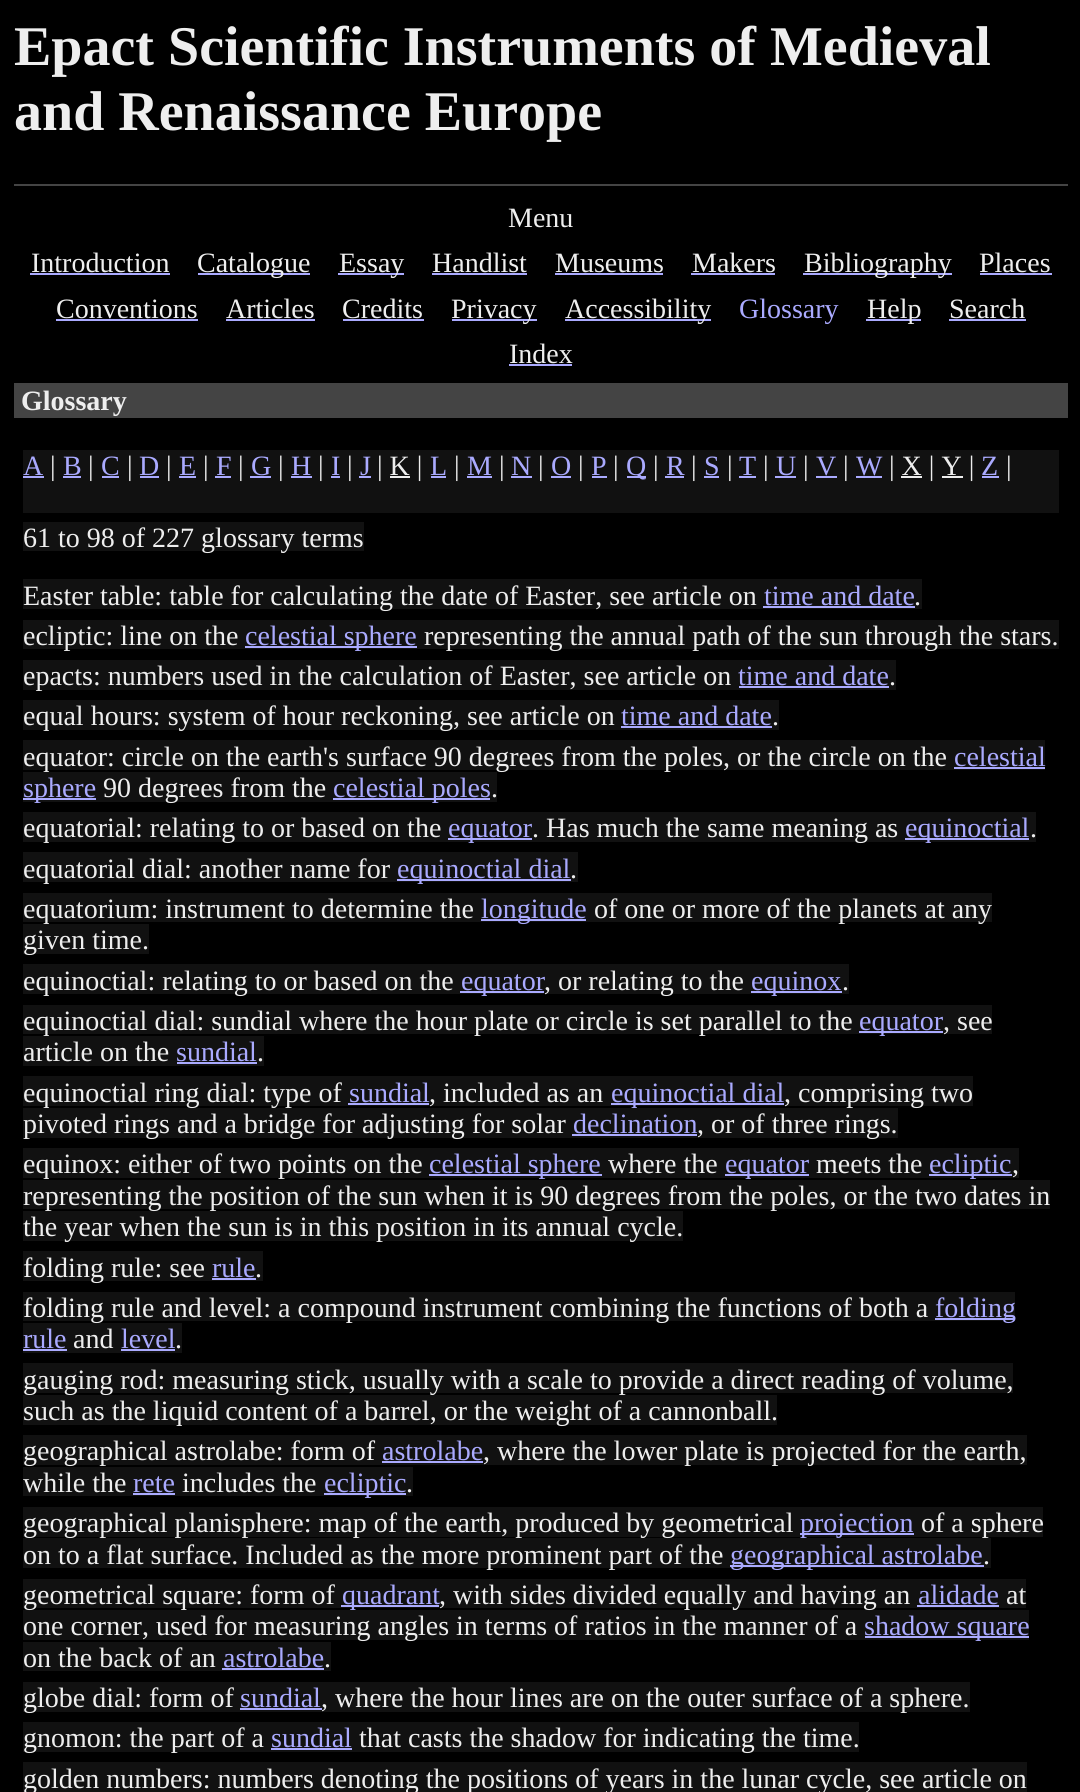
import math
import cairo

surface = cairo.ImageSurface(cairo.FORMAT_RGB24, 1080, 1792)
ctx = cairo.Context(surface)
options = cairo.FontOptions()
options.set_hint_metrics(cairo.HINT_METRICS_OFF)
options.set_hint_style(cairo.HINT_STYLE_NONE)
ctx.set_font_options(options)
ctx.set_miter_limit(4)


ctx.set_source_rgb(0, 0, 0)
ctx.paint()
ctx.select_font_face("Liberation Serif", cairo.FONT_SLANT_NORMAL, cairo.FONT_WEIGHT_BOLD)
ctx.set_font_size(56)
ctx.set_source_rgb(0.933, 0.933, 0.933)
ctx.move_to(14, 65)
ctx.show_text("Epact Scientific Instruments of Medieval")
ctx.move_to(14, 130)
ctx.show_text("and Renaissance Europe")
ctx.set_source_rgb(0.267, 0.267, 0.267)
ctx.rectangle(14, 184, 1054, 2)
ctx.fill()
ctx.select_font_face("Liberation Serif")
ctx.set_font_size(28)
ctx.set_source_rgb(0.933, 0.933, 0.933)
ctx.move_to(508, 227)
ctx.show_text("Menu")
ctx.move_to(31, 272)
ctx.show_text("Introduction")
ctx.set_source_rgb(0.667, 0.667, 1)
ctx.rectangle(30, 273, 140, 2)
ctx.fill()
ctx.rectangle(198, 273, 112, 2)
ctx.fill()
ctx.set_source_rgb(0.933, 0.933, 0.933)
ctx.move_to(197, 272)
ctx.show_text("Catalogue")
ctx.set_source_rgb(0.667, 0.667, 1)
ctx.rectangle(338, 273, 66, 2)
ctx.fill()
ctx.set_source_rgb(0.933, 0.933, 0.933)
ctx.move_to(339, 272)
ctx.show_text("Essay")
ctx.move_to(432, 272)
ctx.show_text("Handlist")
ctx.set_source_rgb(0.667, 0.667, 1)
ctx.rectangle(432, 273, 95, 2)
ctx.fill()
ctx.set_source_rgb(0.933, 0.933, 0.933)
ctx.move_to(555, 272)
ctx.show_text("Museums")
ctx.set_source_rgb(0.667, 0.667, 1)
ctx.rectangle(555, 273, 108, 2)
ctx.fill()
ctx.set_source_rgb(0.933, 0.933, 0.933)
ctx.move_to(692, 272)
ctx.show_text("Makers")
ctx.set_source_rgb(0.667, 0.667, 1)
ctx.rectangle(691, 273, 84, 2)
ctx.fill()
ctx.rectangle(803, 273, 149, 2)
ctx.fill()
ctx.set_source_rgb(0.933, 0.933, 0.933)
ctx.move_to(804, 272)
ctx.show_text("Bibliography")
ctx.move_to(979, 272)
ctx.show_text("Places")
ctx.set_source_rgb(0.667, 0.667, 1)
ctx.rectangle(980, 273, 72, 2)
ctx.fill()
ctx.set_source_rgb(0.933, 0.933, 0.933)
ctx.move_to(56, 318)
ctx.show_text("Conventions")
ctx.set_source_rgb(0.667, 0.667, 1)
ctx.rectangle(56, 319, 142, 2)
ctx.fill()
ctx.set_source_rgb(0.933, 0.933, 0.933)
ctx.move_to(226, 318)
ctx.show_text("Articles")
ctx.set_source_rgb(0.667, 0.667, 1)
ctx.rectangle(226, 319, 89, 2)
ctx.fill()
ctx.set_source_rgb(0.933, 0.933, 0.933)
ctx.move_to(342, 318)
ctx.show_text("Credits")
ctx.set_source_rgb(0.667, 0.667, 1)
ctx.rectangle(343, 319, 81, 2)
ctx.fill()
ctx.rectangle(452, 319, 85, 2)
ctx.fill()
ctx.set_source_rgb(0.933, 0.933, 0.933)
ctx.move_to(451, 318)
ctx.show_text("Privacy")
ctx.set_source_rgb(0.667, 0.667, 1)
ctx.rectangle(565, 319, 146, 2)
ctx.fill()
ctx.set_source_rgb(0.933, 0.933, 0.933)
ctx.move_to(565, 318)
ctx.show_text("Accessibility")
ctx.set_source_rgb(0.667, 0.667, 1)
ctx.move_to(739, 318)
ctx.show_text("Glossary")
ctx.rectangle(866, 319, 55, 2)
ctx.fill()
ctx.set_source_rgb(0.933, 0.933, 0.933)
ctx.move_to(867, 318)
ctx.show_text("Help")
ctx.move_to(949, 318)
ctx.show_text("Search")
ctx.set_source_rgb(0.667, 0.667, 1)
ctx.rectangle(949, 319, 77, 2)
ctx.fill()
ctx.set_source_rgb(0.933, 0.933, 0.933)
ctx.move_to(509, 363)
ctx.show_text("Index")
ctx.set_source_rgb(0.667, 0.667, 1)
ctx.rectangle(509, 364, 63, 2)
ctx.fill()
ctx.set_source_rgb(0.267, 0.267, 0.267)
ctx.rectangle(14, 383, 1054, 35)
ctx.fill()
ctx.select_font_face("Liberation Serif", cairo.FONT_SLANT_NORMAL, cairo.FONT_WEIGHT_BOLD)
ctx.set_source_rgb(0.933, 0.933, 0.933)
ctx.move_to(21, 410)
ctx.show_text("Glossary")
ctx.set_source_rgb(0.067, 0.067, 0.067)
ctx.rectangle(23, 450, 1036, 63)
ctx.fill()
ctx.select_font_face("Liberation Serif")
ctx.set_source_rgb(0.667, 0.667, 1)
ctx.move_to(23, 475)
ctx.show_text("A")
ctx.rectangle(23, 476, 21, 2)
ctx.fill()
ctx.set_source_rgb(0.933, 0.933, 0.933)
ctx.move_to(50, 475)
ctx.show_text("|")
ctx.set_source_rgb(0.667, 0.667, 1)
ctx.move_to(63, 475)
ctx.show_text("B")
ctx.rectangle(63, 476, 18, 2)
ctx.fill()
ctx.set_source_rgb(0.933, 0.933, 0.933)
ctx.move_to(88, 475)
ctx.show_text("|")
ctx.set_source_rgb(0.667, 0.667, 1)
ctx.move_to(101, 475)
ctx.show_text("C")
ctx.rectangle(102, 476, 17, 2)
ctx.fill()
ctx.set_source_rgb(0.933, 0.933, 0.933)
ctx.move_to(127, 475)
ctx.show_text("|")
ctx.set_source_rgb(0.667, 0.667, 1)
ctx.move_to(139, 475)
ctx.show_text("D")
ctx.rectangle(140, 476, 19, 2)
ctx.fill()
ctx.set_source_rgb(0.933, 0.933, 0.933)
ctx.move_to(166, 475)
ctx.show_text("|")
ctx.set_source_rgb(0.667, 0.667, 1)
ctx.move_to(179, 475)
ctx.show_text("E")
ctx.rectangle(179, 476, 17, 2)
ctx.fill()
ctx.set_source_rgb(0.933, 0.933, 0.933)
ctx.move_to(203, 475)
ctx.show_text("|")
ctx.set_source_rgb(0.667, 0.667, 1)
ctx.move_to(216, 475)
ctx.show_text("F")
ctx.rectangle(215, 476, 16, 2)
ctx.fill()
ctx.set_source_rgb(0.933, 0.933, 0.933)
ctx.move_to(238, 475)
ctx.show_text("|")
ctx.set_source_rgb(0.667, 0.667, 1)
ctx.move_to(251, 475)
ctx.show_text("G")
ctx.rectangle(250, 476, 21, 2)
ctx.fill()
ctx.set_source_rgb(0.933, 0.933, 0.933)
ctx.move_to(278, 475)
ctx.show_text("|")
ctx.set_source_rgb(0.667, 0.667, 1)
ctx.move_to(291, 475)
ctx.show_text("H")
ctx.rectangle(291, 476, 21, 2)
ctx.fill()
ctx.set_source_rgb(0.933, 0.933, 0.933)
ctx.move_to(318, 475)
ctx.show_text("|")
ctx.set_source_rgb(0.667, 0.667, 1)
ctx.move_to(331, 475)
ctx.show_text("I")
ctx.rectangle(331, 476, 9, 2)
ctx.fill()
ctx.set_source_rgb(0.933, 0.933, 0.933)
ctx.move_to(347, 475)
ctx.show_text("|")
ctx.set_source_rgb(0.667, 0.667, 1)
ctx.move_to(360, 475)
ctx.show_text("J")
ctx.rectangle(359, 476, 12, 2)
ctx.fill()
ctx.set_source_rgb(0.933, 0.933, 0.933)
ctx.move_to(377, 475)
ctx.show_text("| K |")
ctx.set_source_rgb(0.667, 0.667, 1)
ctx.move_to(430, 475)
ctx.show_text("L")
ctx.rectangle(431, 476, 15, 2)
ctx.fill()
ctx.set_source_rgb(0.933, 0.933, 0.933)
ctx.move_to(454, 475)
ctx.show_text("|")
ctx.set_source_rgb(0.667, 0.667, 1)
ctx.move_to(467, 475)
ctx.show_text("M")
ctx.rectangle(467, 476, 25, 2)
ctx.fill()
ctx.set_source_rgb(0.933, 0.933, 0.933)
ctx.move_to(499, 475)
ctx.show_text("|")
ctx.set_source_rgb(0.667, 0.667, 1)
ctx.move_to(511, 475)
ctx.show_text("N")
ctx.rectangle(511, 476, 21, 2)
ctx.fill()
ctx.set_source_rgb(0.933, 0.933, 0.933)
ctx.move_to(538, 475)
ctx.show_text("|")
ctx.set_source_rgb(0.667, 0.667, 1)
ctx.move_to(551, 475)
ctx.show_text("O")
ctx.rectangle(551, 476, 20, 2)
ctx.fill()
ctx.set_source_rgb(0.933, 0.933, 0.933)
ctx.move_to(578, 475)
ctx.show_text("|")
ctx.set_source_rgb(0.667, 0.667, 1)
ctx.move_to(591, 475)
ctx.show_text("P")
ctx.rectangle(592, 476, 15, 2)
ctx.fill()
ctx.set_source_rgb(0.933, 0.933, 0.933)
ctx.move_to(613, 475)
ctx.show_text("|")
ctx.set_source_rgb(0.667, 0.667, 1)
ctx.rectangle(627, 476, 19, 2)
ctx.fill()
ctx.move_to(626, 475)
ctx.show_text("Q")
ctx.set_source_rgb(0.933, 0.933, 0.933)
ctx.move_to(653, 475)
ctx.show_text("|")
ctx.set_source_rgb(0.667, 0.667, 1)
ctx.move_to(666, 475)
ctx.show_text("R")
ctx.rectangle(665, 476, 19, 2)
ctx.fill()
ctx.set_source_rgb(0.933, 0.933, 0.933)
ctx.move_to(691, 475)
ctx.show_text("|")
ctx.set_source_rgb(0.667, 0.667, 1)
ctx.move_to(704, 475)
ctx.show_text("S")
ctx.rectangle(704, 476, 15, 2)
ctx.fill()
ctx.set_source_rgb(0.933, 0.933, 0.933)
ctx.move_to(727, 475)
ctx.show_text("|")
ctx.set_source_rgb(0.667, 0.667, 1)
ctx.move_to(739, 475)
ctx.show_text("T")
ctx.rectangle(739, 476, 17, 2)
ctx.fill()
ctx.set_source_rgb(0.933, 0.933, 0.933)
ctx.move_to(763, 475)
ctx.show_text("|")
ctx.set_source_rgb(0.667, 0.667, 1)
ctx.move_to(776, 475)
ctx.show_text("U")
ctx.rectangle(775, 476, 21, 2)
ctx.fill()
ctx.set_source_rgb(0.933, 0.933, 0.933)
ctx.move_to(803, 475)
ctx.show_text("|")
ctx.set_source_rgb(0.667, 0.667, 1)
ctx.move_to(816, 475)
ctx.show_text("V")
ctx.rectangle(816, 476, 21, 2)
ctx.fill()
ctx.set_source_rgb(0.933, 0.933, 0.933)
ctx.move_to(843, 475)
ctx.show_text("|")
ctx.set_source_rgb(0.667, 0.667, 1)
ctx.move_to(856, 475)
ctx.show_text("W")
ctx.rectangle(856, 476, 26, 2)
ctx.fill()
ctx.set_source_rgb(0.933, 0.933, 0.933)
ctx.move_to(889, 475)
ctx.show_text("| X | Y |")
ctx.set_source_rgb(0.667, 0.667, 1)
ctx.move_to(981, 475)
ctx.show_text("Z")
ctx.rectangle(982, 476, 17, 2)
ctx.fill()
ctx.set_source_rgb(0.933, 0.933, 0.933)
ctx.move_to(1006, 475)
ctx.show_text("|")
ctx.rectangle(390, 476, 20, 2)
ctx.fill()
ctx.rectangle(901, 476, 21, 2)
ctx.fill()
ctx.rectangle(942, 476, 21, 2)
ctx.fill()
ctx.set_source_rgb(0.067, 0.067, 0.067)
ctx.rectangle(23, 522, 341, 29)
ctx.fill()
ctx.set_source_rgb(0.933, 0.933, 0.933)
ctx.move_to(23, 547)
ctx.show_text("61 to 98 of 227 glossary terms")
ctx.set_source_rgb(0.067, 0.067, 0.067)
ctx.rectangle(23, 579, 899, 30)
ctx.fill()
ctx.set_source_rgb(0.933, 0.933, 0.933)
ctx.move_to(23, 605)
ctx.show_text("Easter table: table for calculating the date of Easter, see article on")
ctx.set_source_rgb(0.667, 0.667, 1)
ctx.move_to(764, 605)
ctx.show_text("time and date")
ctx.set_source_rgb(0.933, 0.933, 0.933)
ctx.move_to(914, 605)
ctx.show_text(".")
ctx.set_source_rgb(0.667, 0.667, 1)
ctx.rectangle(763, 606, 152, 2)
ctx.fill()
ctx.set_source_rgb(0.067, 0.067, 0.067)
ctx.rectangle(23, 620, 1036, 29)
ctx.fill()
ctx.set_source_rgb(0.933, 0.933, 0.933)
ctx.move_to(23, 645)
ctx.show_text("ecliptic: line on the")
ctx.set_source_rgb(0.667, 0.667, 1)
ctx.rectangle(245, 646, 172, 2)
ctx.fill()
ctx.move_to(245, 645)
ctx.show_text("celestial sphere")
ctx.set_source_rgb(0.933, 0.933, 0.933)
ctx.move_to(424, 645)
ctx.show_text("representing the annual path of the sun through the stars.")
ctx.set_source_rgb(0.067, 0.067, 0.067)
ctx.rectangle(23, 660, 873, 30)
ctx.fill()
ctx.set_source_rgb(0.933, 0.933, 0.933)
ctx.move_to(23, 685)
ctx.show_text("epacts: numbers used in the calculation of Easter, see article on")
ctx.set_source_rgb(0.667, 0.667, 1)
ctx.move_to(738, 685)
ctx.show_text("time and date")
ctx.set_source_rgb(0.933, 0.933, 0.933)
ctx.move_to(889, 685)
ctx.show_text(".")
ctx.set_source_rgb(0.667, 0.667, 1)
ctx.rectangle(739, 686, 150, 2)
ctx.fill()
ctx.set_source_rgb(0.067, 0.067, 0.067)
ctx.rectangle(23, 700, 756, 30)
ctx.fill()
ctx.set_source_rgb(0.933, 0.933, 0.933)
ctx.move_to(23, 725)
ctx.show_text("equal hours: system of hour reckoning, see article on")
ctx.set_source_rgb(0.667, 0.667, 1)
ctx.move_to(621, 725)
ctx.show_text("time and date")
ctx.set_source_rgb(0.933, 0.933, 0.933)
ctx.move_to(772, 725)
ctx.show_text(".")
ctx.set_source_rgb(0.667, 0.667, 1)
ctx.rectangle(621, 726, 151, 2)
ctx.fill()
ctx.set_source_rgb(0.067, 0.067, 0.067)
ctx.rectangle(23, 740, 1022, 30)
ctx.fill()
ctx.rectangle(23, 772, 474, 30)
ctx.fill()
ctx.set_source_rgb(0.933, 0.933, 0.933)
ctx.move_to(23, 766)
ctx.show_text("equator: circle on the earth's surface 90 degrees from the poles, or the circle on the")
ctx.set_source_rgb(0.667, 0.667, 1)
ctx.move_to(954, 766)
ctx.show_text("celestial")
ctx.rectangle(954, 767, 91, 2)
ctx.fill()
ctx.rectangle(23, 798, 73, 2)
ctx.fill()
ctx.move_to(23, 797)
ctx.show_text("sphere")
ctx.set_source_rgb(0.933, 0.933, 0.933)
ctx.move_to(103, 797)
ctx.show_text("90 degrees from the")
ctx.set_source_rgb(0.667, 0.667, 1)
ctx.rectangle(333, 798, 157, 2)
ctx.fill()
ctx.move_to(333, 797)
ctx.show_text("celestial poles")
ctx.set_source_rgb(0.933, 0.933, 0.933)
ctx.move_to(491, 797)
ctx.show_text(".")
ctx.set_source_rgb(0.067, 0.067, 0.067)
ctx.rectangle(23, 812, 1013, 30)
ctx.fill()
ctx.set_source_rgb(0.933, 0.933, 0.933)
ctx.move_to(23, 837)
ctx.show_text("equatorial: relating to or based on the")
ctx.set_source_rgb(0.667, 0.667, 1)
ctx.rectangle(448, 838, 84, 2)
ctx.fill()
ctx.move_to(448, 837)
ctx.show_text("equator")
ctx.set_source_rgb(0.933, 0.933, 0.933)
ctx.move_to(532, 837)
ctx.show_text(". Has much the same meaning as")
ctx.set_source_rgb(0.667, 0.667, 1)
ctx.rectangle(905, 838, 124, 2)
ctx.fill()
ctx.move_to(905, 837)
ctx.show_text("equinoctial")
ctx.set_source_rgb(0.933, 0.933, 0.933)
ctx.move_to(1030, 837)
ctx.show_text(".")
ctx.set_source_rgb(0.067, 0.067, 0.067)
ctx.rectangle(23, 852, 555, 30)
ctx.fill()
ctx.set_source_rgb(0.933, 0.933, 0.933)
ctx.move_to(23, 878)
ctx.show_text("equatorial dial: another name for")
ctx.set_source_rgb(0.667, 0.667, 1)
ctx.rectangle(397, 879, 174, 2)
ctx.fill()
ctx.move_to(397, 878)
ctx.show_text("equinoctial dial")
ctx.set_source_rgb(0.933, 0.933, 0.933)
ctx.move_to(570, 878)
ctx.show_text(".")
ctx.set_source_rgb(0.067, 0.067, 0.067)
ctx.rectangle(23, 893, 969, 29)
ctx.fill()
ctx.set_source_rgb(0.933, 0.933, 0.933)
ctx.move_to(23, 918)
ctx.show_text("equatorium: instrument to determine the")
ctx.set_source_rgb(0.667, 0.667, 1)
ctx.rectangle(481, 919, 105, 2)
ctx.fill()
ctx.move_to(481, 918)
ctx.show_text("longitude")
ctx.set_source_rgb(0.933, 0.933, 0.933)
ctx.move_to(594, 918)
ctx.show_text("of one or more of the planets at any")
ctx.set_source_rgb(0.067, 0.067, 0.067)
ctx.rectangle(23, 924, 126, 30)
ctx.fill()
ctx.set_source_rgb(0.933, 0.933, 0.933)
ctx.move_to(23, 949)
ctx.show_text("given time.")
ctx.set_source_rgb(0.067, 0.067, 0.067)
ctx.rectangle(23, 964, 826, 30)
ctx.fill()
ctx.set_source_rgb(0.933, 0.933, 0.933)
ctx.move_to(23, 990)
ctx.show_text("equinoctial: relating to or based on the")
ctx.set_source_rgb(0.667, 0.667, 1)
ctx.rectangle(460, 991, 84, 2)
ctx.fill()
ctx.move_to(461, 990)
ctx.show_text("equator")
ctx.set_source_rgb(0.933, 0.933, 0.933)
ctx.move_to(544, 990)
ctx.show_text(", or relating to the")
ctx.set_source_rgb(0.667, 0.667, 1)
ctx.rectangle(751, 991, 91, 2)
ctx.fill()
ctx.move_to(751, 990)
ctx.show_text("equinox")
ctx.set_source_rgb(0.933, 0.933, 0.933)
ctx.move_to(842, 990)
ctx.show_text(".")
ctx.set_source_rgb(0.067, 0.067, 0.067)
ctx.rectangle(23, 1005, 969, 29)
ctx.fill()
ctx.set_source_rgb(0.933, 0.933, 0.933)
ctx.move_to(23, 1030)
ctx.show_text("equinoctial dial: sundial where the hour plate or circle is set parallel to the")
ctx.set_source_rgb(0.667, 0.667, 1)
ctx.rectangle(859, 1031, 84, 2)
ctx.fill()
ctx.move_to(859, 1030)
ctx.show_text("equator")
ctx.set_source_rgb(0.933, 0.933, 0.933)
ctx.move_to(943, 1030)
ctx.show_text(", see")
ctx.set_source_rgb(0.067, 0.067, 0.067)
ctx.rectangle(23, 1036, 241, 30)
ctx.fill()
ctx.set_source_rgb(0.933, 0.933, 0.933)
ctx.move_to(23, 1061)
ctx.show_text("article on the")
ctx.set_source_rgb(0.667, 0.667, 1)
ctx.move_to(176, 1061)
ctx.show_text("sundial")
ctx.set_source_rgb(0.933, 0.933, 0.933)
ctx.move_to(257, 1061)
ctx.show_text(".")
ctx.set_source_rgb(0.667, 0.667, 1)
ctx.rectangle(177, 1062, 80, 2)
ctx.fill()
ctx.set_source_rgb(0.067, 0.067, 0.067)
ctx.rectangle(23, 1076, 950, 30)
ctx.fill()
ctx.rectangle(23, 1108, 875, 30)
ctx.fill()
ctx.set_source_rgb(0.933, 0.933, 0.933)
ctx.move_to(23, 1102)
ctx.show_text("equinoctial ring dial: type of")
ctx.set_source_rgb(0.667, 0.667, 1)
ctx.move_to(349, 1102)
ctx.show_text("sundial")
ctx.set_source_rgb(0.933, 0.933, 0.933)
ctx.move_to(429, 1102)
ctx.show_text(", included as an")
ctx.set_source_rgb(0.667, 0.667, 1)
ctx.rectangle(348, 1103, 81, 2)
ctx.fill()
ctx.rectangle(611, 1103, 173, 2)
ctx.fill()
ctx.move_to(611, 1102)
ctx.show_text("equinoctial dial")
ctx.set_source_rgb(0.933, 0.933, 0.933)
ctx.move_to(784, 1102)
ctx.show_text(", comprising two")
ctx.move_to(23, 1133)
ctx.show_text("pivoted rings and a bridge for adjusting for solar")
ctx.set_source_rgb(0.667, 0.667, 1)
ctx.move_to(573, 1133)
ctx.show_text("declination")
ctx.set_source_rgb(0.933, 0.933, 0.933)
ctx.move_to(697, 1133)
ctx.show_text(", or of three rings.")
ctx.set_source_rgb(0.667, 0.667, 1)
ctx.rectangle(572, 1134, 125, 2)
ctx.fill()
ctx.set_source_rgb(0.067, 0.067, 0.067)
ctx.rectangle(23, 1148, 996, 30)
ctx.fill()
ctx.set_source_rgb(0.933, 0.933, 0.933)
ctx.move_to(23, 1173)
ctx.show_text("equinox: either of two points on the")
ctx.set_source_rgb(0.667, 0.667, 1)
ctx.rectangle(429, 1174, 173, 2)
ctx.fill()
ctx.move_to(429, 1173)
ctx.show_text("celestial sphere")
ctx.set_source_rgb(0.933, 0.933, 0.933)
ctx.move_to(608, 1173)
ctx.show_text("where the")
ctx.set_source_rgb(0.667, 0.667, 1)
ctx.rectangle(725, 1174, 84, 2)
ctx.fill()
ctx.move_to(725, 1173)
ctx.show_text("equator")
ctx.set_source_rgb(0.933, 0.933, 0.933)
ctx.move_to(816, 1173)
ctx.show_text("meets the")
ctx.set_source_rgb(0.667, 0.667, 1)
ctx.rectangle(929, 1174, 83, 2)
ctx.fill()
ctx.move_to(929, 1173)
ctx.show_text("ecliptic")
ctx.set_source_rgb(0.933, 0.933, 0.933)
ctx.move_to(1012, 1173)
ctx.show_text(",")
ctx.set_source_rgb(0.067, 0.067, 0.067)
ctx.rectangle(23, 1180, 1027, 29)
ctx.fill()
ctx.rectangle(23, 1211, 660, 30)
ctx.fill()
ctx.set_source_rgb(0.933, 0.933, 0.933)
ctx.move_to(23, 1205)
ctx.show_text("representing the position of the sun when it is 90 degrees from the poles, or the two dates in")
ctx.move_to(23, 1236)
ctx.show_text("the year when the sun is in this position in its annual cycle.")
ctx.set_source_rgb(0.067, 0.067, 0.067)
ctx.rectangle(23, 1251, 240, 30)
ctx.fill()
ctx.set_source_rgb(0.933, 0.933, 0.933)
ctx.move_to(23, 1277)
ctx.show_text("folding rule: see")
ctx.set_source_rgb(0.667, 0.667, 1)
ctx.move_to(212, 1277)
ctx.show_text("rule")
ctx.set_source_rgb(0.933, 0.933, 0.933)
ctx.move_to(255, 1277)
ctx.show_text(".")
ctx.set_source_rgb(0.667, 0.667, 1)
ctx.rectangle(212, 1278, 44, 2)
ctx.fill()
ctx.set_source_rgb(0.067, 0.067, 0.067)
ctx.rectangle(23, 1292, 992, 29)
ctx.fill()
ctx.rectangle(23, 1323, 159, 30)
ctx.fill()
ctx.set_source_rgb(0.933, 0.933, 0.933)
ctx.move_to(23, 1317)
ctx.show_text("folding rule and level: a compound instrument combining the functions of both a")
ctx.set_source_rgb(0.667, 0.667, 1)
ctx.rectangle(935, 1318, 80, 2)
ctx.fill()
ctx.move_to(935, 1317)
ctx.show_text("folding")
ctx.move_to(23, 1348)
ctx.show_text("rule")
ctx.rectangle(23, 1349, 44, 2)
ctx.fill()
ctx.set_source_rgb(0.933, 0.933, 0.933)
ctx.move_to(73, 1348)
ctx.show_text("and")
ctx.set_source_rgb(0.667, 0.667, 1)
ctx.move_to(121, 1348)
ctx.show_text("level")
ctx.set_source_rgb(0.933, 0.933, 0.933)
ctx.move_to(175, 1348)
ctx.show_text(".")
ctx.set_source_rgb(0.667, 0.667, 1)
ctx.rectangle(121, 1349, 54, 2)
ctx.fill()
ctx.set_source_rgb(0.067, 0.067, 0.067)
ctx.rectangle(23, 1363, 990, 30)
ctx.fill()
ctx.rectangle(23, 1395, 754, 30)
ctx.fill()
ctx.set_source_rgb(0.933, 0.933, 0.933)
ctx.move_to(23, 1389)
ctx.show_text("gauging rod: measuring stick, usually with a scale to provide a direct reading of volume,")
ctx.move_to(23, 1420)
ctx.show_text("such as the liquid content of a barrel, or the weight of a cannonball.")
ctx.set_source_rgb(0.067, 0.067, 0.067)
ctx.rectangle(23, 1435, 1004, 30)
ctx.fill()
ctx.set_source_rgb(0.933, 0.933, 0.933)
ctx.move_to(23, 1460)
ctx.show_text("geographical astrolabe: form of")
ctx.set_source_rgb(0.667, 0.667, 1)
ctx.move_to(382, 1460)
ctx.show_text("astrolabe")
ctx.set_source_rgb(0.933, 0.933, 0.933)
ctx.move_to(483, 1460)
ctx.show_text(", where the lower plate is projected for the earth,")
ctx.set_source_rgb(0.667, 0.667, 1)
ctx.rectangle(382, 1461, 101, 2)
ctx.fill()
ctx.set_source_rgb(0.067, 0.067, 0.067)
ctx.rectangle(23, 1467, 390, 29)
ctx.fill()
ctx.set_source_rgb(0.933, 0.933, 0.933)
ctx.move_to(23, 1492)
ctx.show_text("while the")
ctx.set_source_rgb(0.667, 0.667, 1)
ctx.move_to(133, 1492)
ctx.show_text("rete")
ctx.rectangle(133, 1493, 42, 2)
ctx.fill()
ctx.set_source_rgb(0.933, 0.933, 0.933)
ctx.move_to(182, 1492)
ctx.show_text("includes the")
ctx.set_source_rgb(0.667, 0.667, 1)
ctx.rectangle(324, 1493, 82, 2)
ctx.fill()
ctx.move_to(324, 1492)
ctx.show_text("ecliptic")
ctx.set_source_rgb(0.933, 0.933, 0.933)
ctx.move_to(406, 1492)
ctx.show_text(".")
ctx.set_source_rgb(0.067, 0.067, 0.067)
ctx.rectangle(23, 1507, 1020, 30)
ctx.fill()
ctx.rectangle(23, 1538, 968, 30)
ctx.fill()
ctx.set_source_rgb(0.933, 0.933, 0.933)
ctx.move_to(23, 1532)
ctx.show_text("geographical planisphere: map of the earth, produced by geometrical")
ctx.set_source_rgb(0.667, 0.667, 1)
ctx.rectangle(800, 1533, 114, 2)
ctx.fill()
ctx.move_to(800, 1532)
ctx.show_text("projection")
ctx.set_source_rgb(0.933, 0.933, 0.933)
ctx.move_to(921, 1532)
ctx.show_text("of a sphere")
ctx.move_to(23, 1564)
ctx.show_text("on to a flat surface. Included as the more prominent part of the")
ctx.set_source_rgb(0.667, 0.667, 1)
ctx.rectangle(730, 1565, 254, 2)
ctx.fill()
ctx.move_to(730, 1564)
ctx.show_text("geographical astrolabe")
ctx.set_source_rgb(0.933, 0.933, 0.933)
ctx.move_to(983, 1564)
ctx.show_text(".")
ctx.set_source_rgb(0.067, 0.067, 0.067)
ctx.rectangle(23, 1579, 1003, 29)
ctx.fill()
ctx.rectangle(23, 1610, 1006, 30)
ctx.fill()
ctx.set_source_rgb(0.933, 0.933, 0.933)
ctx.move_to(23, 1604)
ctx.show_text("geometrical square: form of")
ctx.set_source_rgb(0.667, 0.667, 1)
ctx.rectangle(341, 1605, 98, 2)
ctx.fill()
ctx.move_to(342, 1604)
ctx.show_text("quadrant")
ctx.set_source_rgb(0.933, 0.933, 0.933)
ctx.move_to(439, 1604)
ctx.show_text(", with sides divided equally and having an")
ctx.set_source_rgb(0.667, 0.667, 1)
ctx.rectangle(917, 1605, 82, 2)
ctx.fill()
ctx.move_to(918, 1604)
ctx.show_text("alidade")
ctx.set_source_rgb(0.933, 0.933, 0.933)
ctx.move_to(1006, 1604)
ctx.show_text("at")
ctx.move_to(23, 1635)
ctx.show_text("one corner, used for measuring angles in terms of ratios in the manner of a")
ctx.set_source_rgb(0.667, 0.667, 1)
ctx.rectangle(865, 1636, 164, 2)
ctx.fill()
ctx.move_to(864, 1635)
ctx.show_text("shadow square")
ctx.set_source_rgb(0.067, 0.067, 0.067)
ctx.rectangle(23, 1642, 308, 29)
ctx.fill()
ctx.set_source_rgb(0.933, 0.933, 0.933)
ctx.move_to(23, 1667)
ctx.show_text("on the back of an")
ctx.set_source_rgb(0.667, 0.667, 1)
ctx.move_to(223, 1667)
ctx.show_text("astrolabe")
ctx.set_source_rgb(0.933, 0.933, 0.933)
ctx.move_to(324, 1667)
ctx.show_text(".")
ctx.set_source_rgb(0.667, 0.667, 1)
ctx.rectangle(222, 1668, 102, 2)
ctx.fill()
ctx.set_source_rgb(0.067, 0.067, 0.067)
ctx.rectangle(23, 1682, 947, 30)
ctx.fill()
ctx.set_source_rgb(0.933, 0.933, 0.933)
ctx.move_to(23, 1707)
ctx.show_text("globe dial: form of")
ctx.set_source_rgb(0.667, 0.667, 1)
ctx.move_to(240, 1707)
ctx.show_text("sundial")
ctx.set_source_rgb(0.933, 0.933, 0.933)
ctx.move_to(321, 1707)
ctx.show_text(", where the hour lines are on the outer surface of a sphere.")
ctx.set_source_rgb(0.667, 0.667, 1)
ctx.rectangle(240, 1708, 82, 2)
ctx.fill()
ctx.set_source_rgb(0.067, 0.067, 0.067)
ctx.rectangle(23, 1722, 836, 30)
ctx.fill()
ctx.set_source_rgb(0.933, 0.933, 0.933)
ctx.move_to(23, 1747)
ctx.show_text("gnomon: the part of a")
ctx.set_source_rgb(0.667, 0.667, 1)
ctx.move_to(271, 1747)
ctx.show_text("sundial")
ctx.rectangle(271, 1748, 81, 2)
ctx.fill()
ctx.set_source_rgb(0.933, 0.933, 0.933)
ctx.move_to(359, 1747)
ctx.show_text("that casts the shadow for indicating the time.")
ctx.set_source_rgb(0.067, 0.067, 0.067)
ctx.rectangle(23, 1762, 1004, 30)
ctx.fill()
ctx.set_source_rgb(0.933, 0.933, 0.933)
ctx.move_to(23, 1788)
ctx.show_text("golden numbers: numbers denoting the positions of years in the lunar cycle, see article on")
surface.write_to_png("page.png")
